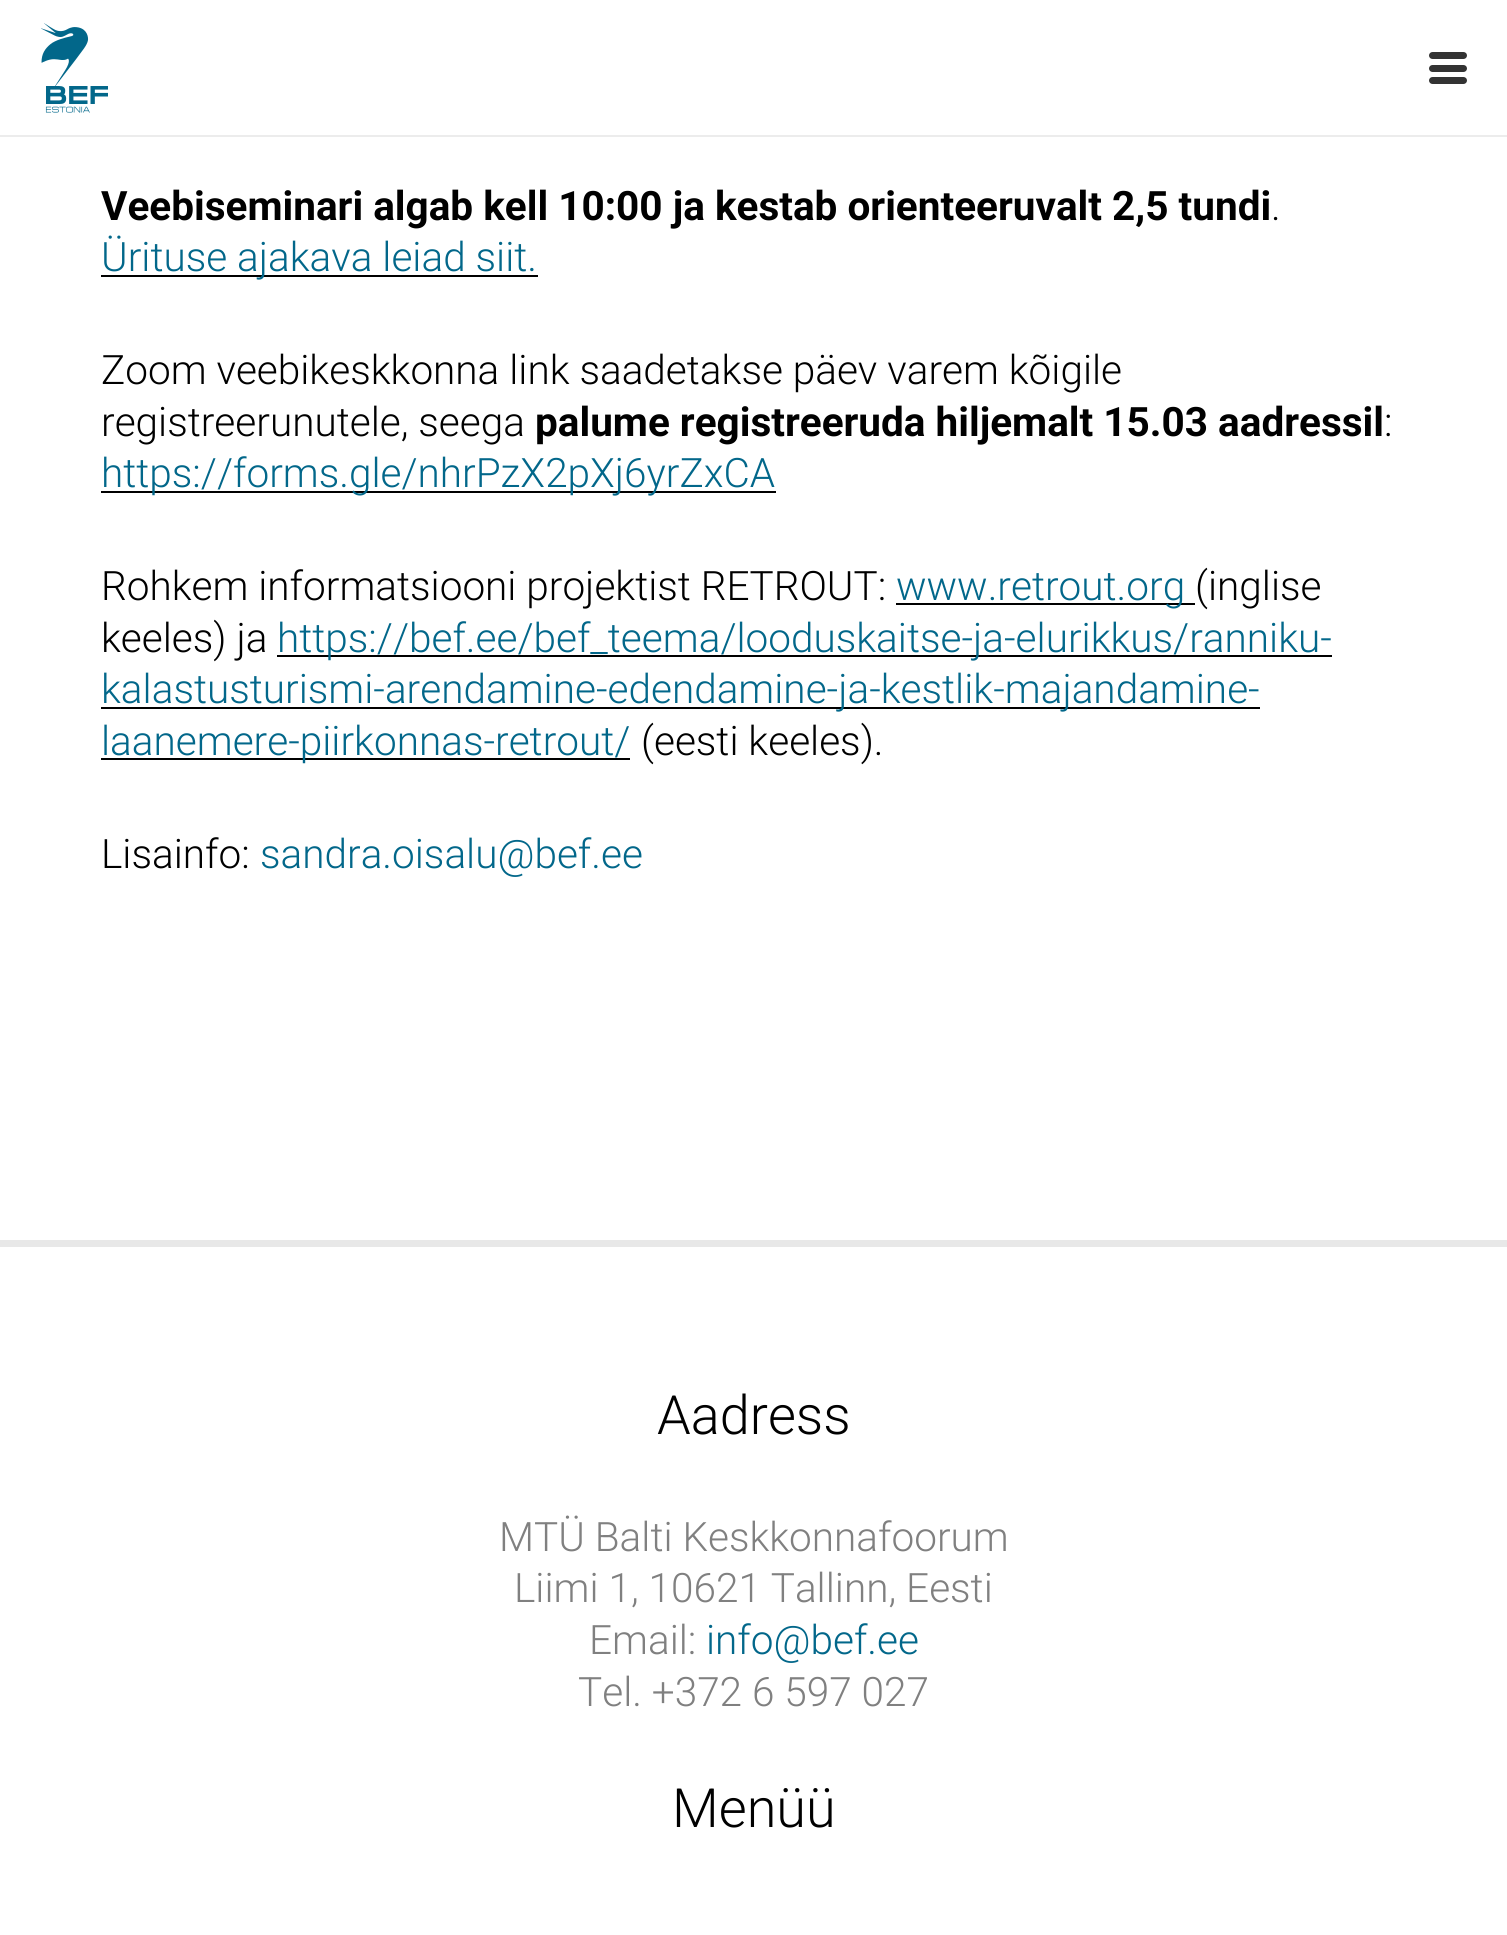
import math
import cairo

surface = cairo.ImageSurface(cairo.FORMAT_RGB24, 1507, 1935)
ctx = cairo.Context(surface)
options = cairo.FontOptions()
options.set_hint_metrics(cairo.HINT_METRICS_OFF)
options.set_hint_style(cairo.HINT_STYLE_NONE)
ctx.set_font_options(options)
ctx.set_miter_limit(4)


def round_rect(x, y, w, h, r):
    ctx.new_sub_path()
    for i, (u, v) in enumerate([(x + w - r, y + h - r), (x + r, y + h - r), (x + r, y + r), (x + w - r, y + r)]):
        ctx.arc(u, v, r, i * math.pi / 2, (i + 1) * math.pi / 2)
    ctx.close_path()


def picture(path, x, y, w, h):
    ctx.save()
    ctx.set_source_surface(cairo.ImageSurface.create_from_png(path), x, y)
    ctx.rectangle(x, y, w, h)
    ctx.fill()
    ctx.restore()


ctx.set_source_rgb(1, 1, 1)
ctx.paint()
ctx.set_source_rgb(0.922, 0.922, 0.922)
ctx.new_path()
ctx.move_to(0, 135)
ctx.line_to(0, 137)
ctx.line_to(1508, 137)
ctx.line_to(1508, 2)
ctx.line_to(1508, 135)
ctx.close_path()
ctx.fill()
picture("img1.png", 41, 23, 67, 90)
ctx.set_source_rgb(0.2, 0.2, 0.2)
round_rect(1429, 65, 38, 7, 3.5)
ctx.fill()
round_rect(1429, 52, 38, 7, 3.5)
ctx.fill()
round_rect(1429, 77, 38, 7, 3.5)
ctx.fill()
ctx.select_font_face("Roboto", cairo.FONT_SLANT_NORMAL, cairo.FONT_WEIGHT_BOLD)
ctx.set_font_size(40.5)
ctx.set_source_rgb(0, 0, 0)
ctx.move_to(101, 220)
ctx.show_text("Veebiseminari algab kell 10:00 ja kestab orienteeruvalt 2,5 tundi")
ctx.select_font_face("Roboto Light")
ctx.move_to(1271, 220)
ctx.show_text(".")
ctx.rectangle(101, 275, 437, 2)
ctx.fill()
ctx.set_source_rgb(0.008, 0.404, 0.541)
ctx.move_to(101, 271)
ctx.show_text("Ürituse ajakava leiad siit.")
ctx.set_source_rgb(0, 0, 0)
ctx.move_to(101, 384)
ctx.show_text("Zoom veebikeskkonna link saadetakse päev varem kõigile")
ctx.move_to(101, 436)
ctx.show_text("registreerunutele, seega")
ctx.select_font_face("Roboto", cairo.FONT_SLANT_NORMAL, cairo.FONT_WEIGHT_BOLD)
ctx.move_to(535, 436)
ctx.show_text("palume registreeruda hiljemalt 15.03 aadressil")
ctx.select_font_face("Roboto Light")
ctx.move_to(1384, 436)
ctx.show_text(":")
ctx.rectangle(101, 491, 675, 2)
ctx.fill()
ctx.set_source_rgb(0.008, 0.404, 0.541)
ctx.move_to(101, 487)
ctx.show_text("https://forms.gle/nhrPzX2pXj6yrZxCA")
ctx.set_source_rgb(0, 0, 0)
ctx.move_to(101, 600)
ctx.show_text("Rohkem informatsiooni projektist RETROUT:")
ctx.rectangle(896, 603, 299, 2)
ctx.fill()
ctx.set_source_rgb(0.008, 0.404, 0.541)
ctx.move_to(896, 600)
ctx.show_text("www.retrout.org")
ctx.set_source_rgb(0, 0, 0)
ctx.move_to(1195, 600)
ctx.show_text("(inglise")
ctx.move_to(101, 652)
ctx.show_text("keeles) ja")
ctx.rectangle(277, 655, 1055, 2)
ctx.fill()
ctx.set_source_rgb(0.008, 0.404, 0.541)
ctx.move_to(277, 652)
ctx.show_text("https://bef.ee/bef_teema/looduskaitse-ja-elurikkus/ranniku-")
ctx.set_source_rgb(0, 0, 0)
ctx.rectangle(101, 707, 1159, 2)
ctx.fill()
ctx.set_source_rgb(0.008, 0.404, 0.541)
ctx.move_to(101, 703)
ctx.show_text("kalastusturismi-arendamine-edendamine-ja-kestlik-majandamine-")
ctx.set_source_rgb(0, 0, 0)
ctx.rectangle(101, 758, 529, 2)
ctx.fill()
ctx.set_source_rgb(0.008, 0.404, 0.541)
ctx.move_to(101, 755)
ctx.show_text("laanemere-piirkonnas-retrout/")
ctx.set_source_rgb(0, 0, 0)
ctx.move_to(641, 755)
ctx.show_text("(eesti keeles).")
ctx.move_to(101, 868)
ctx.show_text("Lisainfo:")
ctx.set_source_rgb(0.008, 0.404, 0.541)
ctx.move_to(260, 868)
ctx.show_text("sandra.oisalu@bef.ee")
ctx.set_source_rgb(0.91, 0.91, 0.91)
ctx.rectangle(0, 1240, 1507, 7)
ctx.fill()
ctx.set_font_size(54)
ctx.set_source_rgb(0, 0, 0)
ctx.move_to(657, 1434)
ctx.show_text("Aadress")
ctx.set_font_size(40.5)
ctx.set_source_rgb(0.502, 0.502, 0.502)
ctx.move_to(499, 1551)
ctx.show_text("MTÜ Balti Keskkonnafoorum")
ctx.move_to(514, 1602)
ctx.show_text("Liimi 1, 10621 Tallinn, Eesti")
ctx.move_to(589, 1654)
ctx.show_text("Email:")
ctx.set_source_rgb(0.008, 0.404, 0.541)
ctx.move_to(706, 1654)
ctx.show_text("info@bef.ee")
ctx.set_source_rgb(0.502, 0.502, 0.502)
ctx.move_to(578, 1706)
ctx.show_text("Tel. +372 6 597 027")
ctx.set_font_size(54)
ctx.set_source_rgb(0, 0, 0)
ctx.move_to(672, 1827)
ctx.show_text("Menüü")
surface.write_to_png("page.png")
